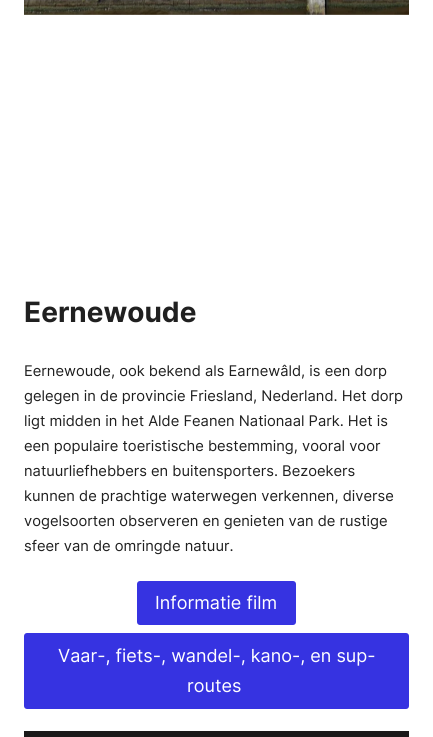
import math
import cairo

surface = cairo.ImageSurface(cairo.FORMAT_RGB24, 433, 737)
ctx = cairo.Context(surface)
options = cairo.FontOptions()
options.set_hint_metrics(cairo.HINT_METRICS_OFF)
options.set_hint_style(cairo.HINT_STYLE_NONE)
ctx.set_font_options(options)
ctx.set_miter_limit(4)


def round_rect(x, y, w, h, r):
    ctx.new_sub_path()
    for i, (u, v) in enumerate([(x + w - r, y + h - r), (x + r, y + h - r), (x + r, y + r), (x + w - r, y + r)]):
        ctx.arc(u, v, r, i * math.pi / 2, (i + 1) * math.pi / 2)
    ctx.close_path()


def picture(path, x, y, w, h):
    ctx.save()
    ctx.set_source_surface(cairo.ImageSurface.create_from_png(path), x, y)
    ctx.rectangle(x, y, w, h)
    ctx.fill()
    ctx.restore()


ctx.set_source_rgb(1, 1, 1)
ctx.paint()
picture("img1.png", 24, 0, 385, 15)
ctx.select_font_face("Inter", cairo.FONT_SLANT_NORMAL, cairo.FONT_WEIGHT_BOLD)
ctx.set_font_size(28)
ctx.set_source_rgb(0.125, 0.125, 0.125)
ctx.move_to(24, 322)
ctx.show_text("Eernewoude")
ctx.select_font_face("Inter")
ctx.set_font_size(14.7)
ctx.move_to(24, 376)
ctx.show_text("Eernewoude, ook bekend als Earnewâld, is een dorp")
ctx.move_to(24, 401)
ctx.show_text("gelegen in de provincie Friesland, Nederland. Het dorp")
ctx.move_to(24, 426)
ctx.show_text("ligt midden in het Alde Feanen Nationaal Park. Het is")
ctx.move_to(24, 451)
ctx.show_text("een populaire toeristische bestemming, vooral voor")
ctx.move_to(24, 476)
ctx.show_text("natuurliefhebbers en buitensporters. Bezoekers")
ctx.move_to(24, 501)
ctx.show_text("kunnen de prachtige waterwegen verkennen, diverse")
ctx.move_to(24, 526)
ctx.show_text("vogelsoorten observeren en genieten van de rustige")
ctx.move_to(24, 551)
ctx.show_text("sfeer van de omringde natuur.")
ctx.set_source_rgb(0.212, 0.2, 0.882)
round_rect(137, 581, 159, 44, 3)
ctx.fill()
ctx.set_font_size(18)
ctx.set_source_rgb(1, 1, 1)
ctx.move_to(155, 609)
ctx.show_text("Informatie film")
ctx.set_source_rgb(0.212, 0.2, 0.882)
round_rect(24, 633, 385, 76, 3)
ctx.fill()
ctx.set_source_rgb(1, 1, 1)
ctx.move_to(58, 662)
ctx.show_text("Vaar-, fiets-, wandel-, kano-, en sup-")
ctx.move_to(187, 692)
ctx.show_text("routes")
ctx.set_source_rgb(0.102, 0.098, 0.098)
ctx.rectangle(24, 731, 385, 6)
ctx.fill()
surface.write_to_png("page.png")
